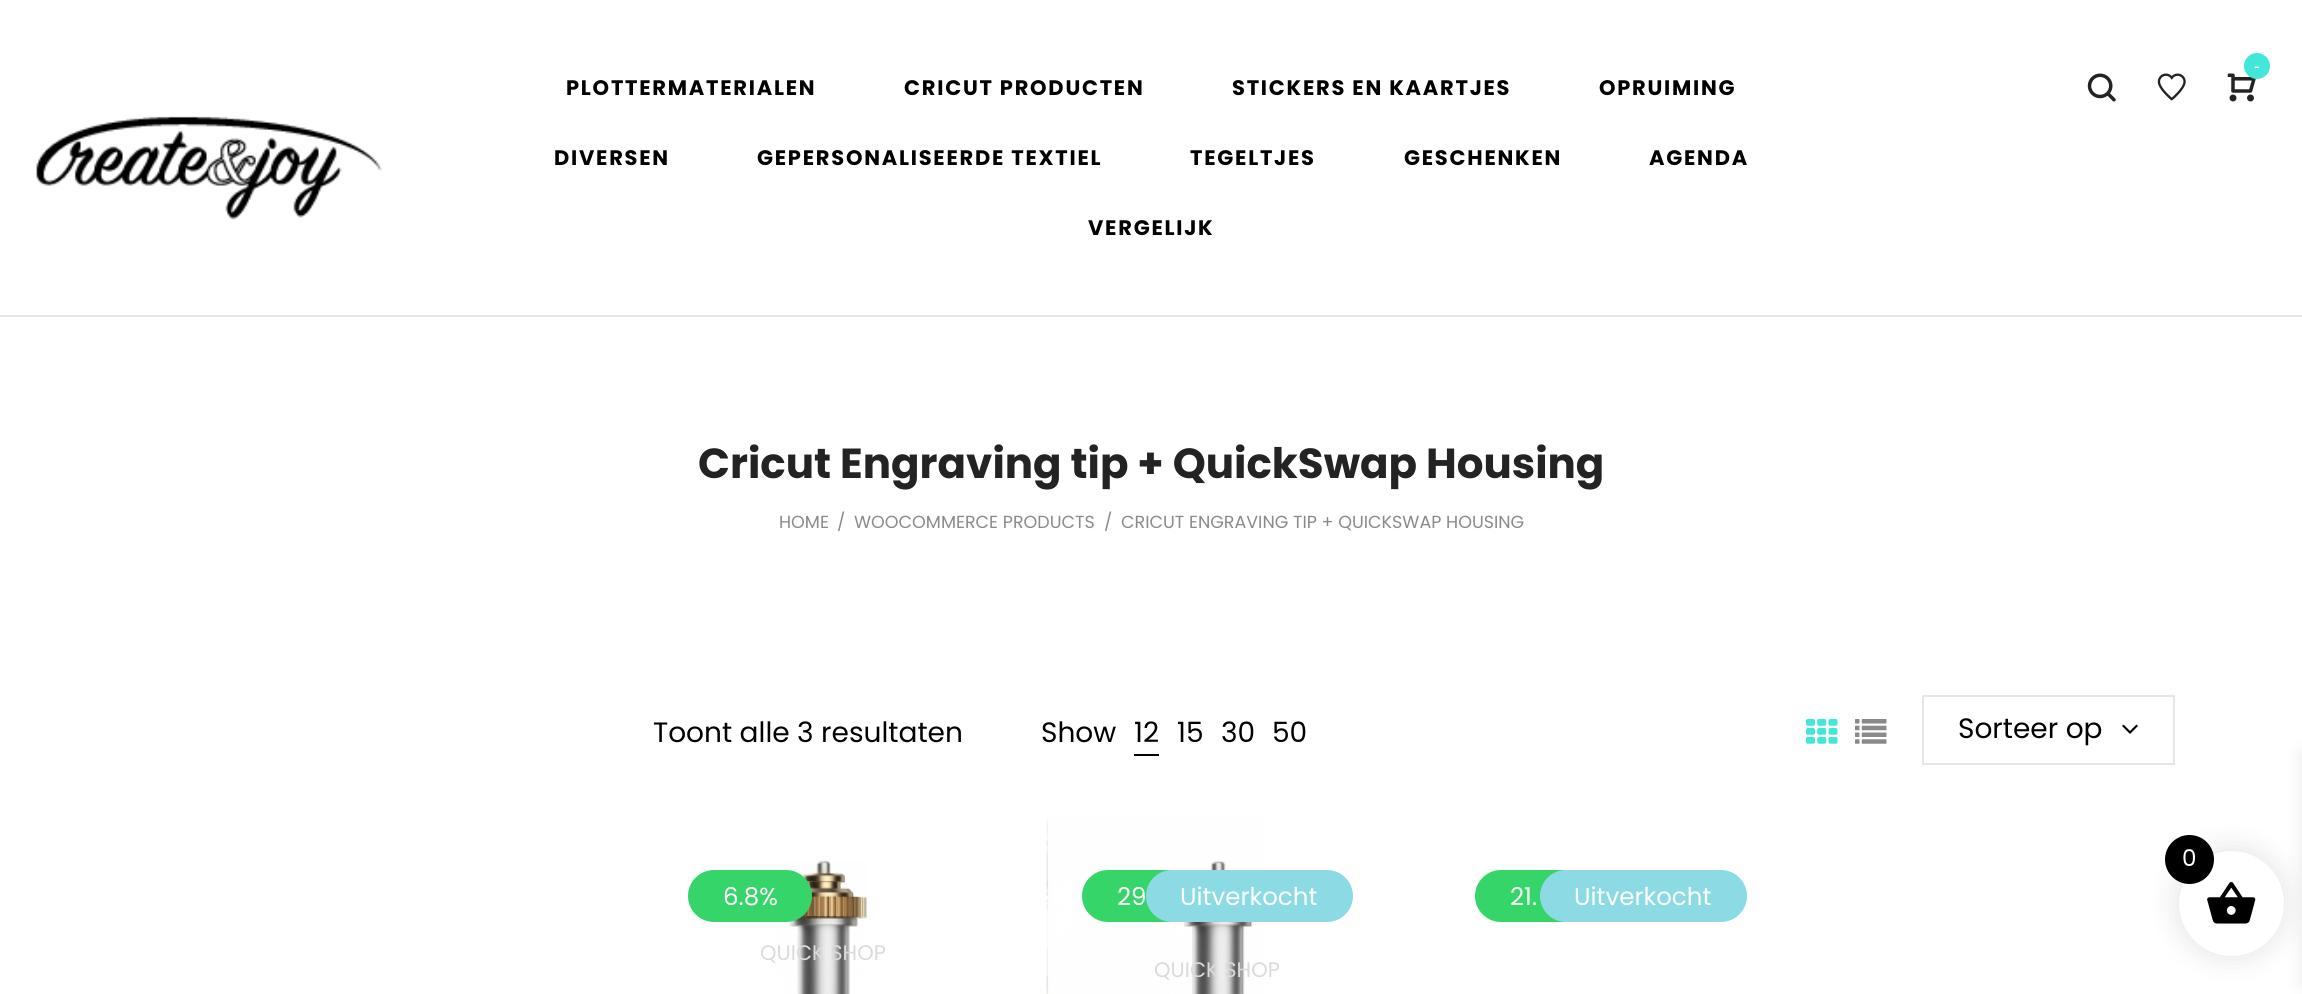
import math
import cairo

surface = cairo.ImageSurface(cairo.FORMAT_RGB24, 2302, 994)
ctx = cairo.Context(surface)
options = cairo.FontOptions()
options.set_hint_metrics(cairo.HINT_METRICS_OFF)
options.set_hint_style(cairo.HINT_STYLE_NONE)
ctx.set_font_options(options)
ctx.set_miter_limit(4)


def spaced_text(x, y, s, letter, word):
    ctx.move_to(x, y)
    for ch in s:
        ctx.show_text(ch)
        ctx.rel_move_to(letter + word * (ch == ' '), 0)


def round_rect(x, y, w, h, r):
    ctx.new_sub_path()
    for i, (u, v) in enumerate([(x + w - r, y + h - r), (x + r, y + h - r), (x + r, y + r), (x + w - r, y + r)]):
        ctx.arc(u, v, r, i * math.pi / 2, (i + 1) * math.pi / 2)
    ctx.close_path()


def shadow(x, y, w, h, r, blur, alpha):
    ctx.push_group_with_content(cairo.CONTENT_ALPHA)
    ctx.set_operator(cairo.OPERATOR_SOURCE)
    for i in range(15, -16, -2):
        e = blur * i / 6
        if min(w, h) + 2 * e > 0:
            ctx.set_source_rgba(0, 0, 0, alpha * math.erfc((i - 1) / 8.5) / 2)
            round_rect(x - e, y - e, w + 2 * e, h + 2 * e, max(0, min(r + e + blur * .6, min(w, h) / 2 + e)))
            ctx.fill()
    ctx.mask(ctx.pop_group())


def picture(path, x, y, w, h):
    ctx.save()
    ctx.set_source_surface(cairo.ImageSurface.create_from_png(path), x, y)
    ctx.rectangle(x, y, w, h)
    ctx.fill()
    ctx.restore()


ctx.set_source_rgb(1, 1, 1)
ctx.paint()
picture("img1.png", 2227, 73, 29, 29)
ctx.set_source_rgb(0.263, 0.906, 0.851)
ctx.arc(2257, 66, 13, 0, 2 * math.pi)
ctx.fill()
ctx.select_font_face("Liberation Sans")
ctx.set_font_size(17.5)
ctx.set_source_rgb(1, 1, 1)
ctx.move_to(2254, 72)
ctx.show_text("-")
picture("img2.png", 2087, 73, 29, 29)
picture("img3.png", 2157, 73, 29, 28)
picture("img4.png", 36, 116, 346, 104)
ctx.select_font_face("Poppins", cairo.FONT_SLANT_NORMAL, cairo.FONT_WEIGHT_BOLD)
ctx.set_font_size(21)
ctx.set_source_rgb(0, 0, 0)
spaced_text(566, 95, "PLOTTERMATERIALEN", 1.75, 0)
spaced_text(904, 95, "CRICUT PRODUCTEN", 1.75, 0)
spaced_text(1232, 95, "STICKERS EN KAARTJES", 1.75, 0)
spaced_text(1599, 95, "OPRUIMING", 1.75, 0)
spaced_text(554, 165, "DIVERSEN", 1.75, 0)
spaced_text(757, 165, "GEPERSONALISEERDE TEXTIEL", 1.75, 0)
spaced_text(1190, 165, "TEGELTJES", 1.75, 0)
spaced_text(1404, 165, "GESCHENKEN", 1.75, 0)
spaced_text(1649, 165, "AGENDA", 1.75, 0)
spaced_text(1088, 235, "VERGELIJK", 1.75, 0)
ctx.set_source_rgb(0.902, 0.902, 0.902)
ctx.rectangle(0, 315, 2302, 2)
ctx.fill()
ctx.set_font_size(42)
ctx.set_source_rgb(0.137, 0.137, 0.141)
ctx.move_to(698, 478)
ctx.show_text("Cricut Engraving tip + QuickSwap Housing")
ctx.select_font_face("Poppins")
ctx.set_font_size(17.5)
ctx.set_source_rgb(0.541, 0.541, 0.541)
ctx.move_to(779, 528)
ctx.show_text("HOME")
ctx.move_to(837, 528)
ctx.show_text("/")
ctx.move_to(854, 528)
ctx.show_text("WOOCOMMERCE PRODUCTS")
ctx.move_to(1104, 528)
ctx.show_text("/")
ctx.move_to(1121, 528)
ctx.show_text("CRICUT ENGRAVING TIP + QUICKSWAP HOUSING")
ctx.set_font_size(28)
ctx.set_source_rgb(0, 0, 0)
ctx.move_to(653, 742)
ctx.show_text("Toont alle 3 resultaten")
ctx.move_to(1041, 742)
ctx.show_text("Show")
ctx.rectangle(1134, 754, 25, 2)
ctx.fill()
ctx.move_to(1134, 742)
ctx.show_text("12")
ctx.move_to(1177, 742)
ctx.show_text("15")
ctx.move_to(1221, 742)
ctx.show_text("30")
ctx.move_to(1272, 742)
ctx.show_text("50")
picture("img5.png", 1806, 719, 32, 25)
picture("img6.png", 1855, 719, 32, 25)
ctx.rectangle(1923, 696, 251, 68)
ctx.set_source_rgb(0.902, 0.902, 0.902)
ctx.stroke()
ctx.set_source_rgb(0, 0, 0)
ctx.move_to(1958, 738)
ctx.show_text("Sorteer op")
picture("img7.png", 2122, 724, 16, 10)
picture("img8.png", 778, 860, 90, 134)
ctx.set_source_rgb(0.208, 0.835, 0.416)
round_rect(688, 870, 124, 52, 26)
ctx.fill()
ctx.set_font_size(24.5)
ctx.set_source_rgb(1, 1, 1)
ctx.move_to(723, 905)
ctx.show_text("6.8%")
ctx.set_font_size(21)
ctx.set_source_rgb(0.855, 0.855, 0.855)
ctx.move_to(760, 960)
ctx.show_text("QUICK SHOP")
picture("img9.png", 1046, 818, 217, 176)
ctx.set_source_rgb(0.208, 0.835, 0.416)
round_rect(1082, 870, 131, 52, 26)
ctx.fill()
ctx.set_font_size(24.5)
ctx.set_source_rgb(1, 1, 1)
ctx.move_to(1117, 905)
ctx.show_text("29")
ctx.set_source_rgb(0.549, 0.859, 0.894)
round_rect(1146, 870, 207, 52, 26)
ctx.fill()
ctx.set_source_rgb(1, 1, 1)
ctx.move_to(1180, 905)
ctx.show_text("Uitverkocht")
ctx.set_font_size(21)
ctx.set_source_rgb(0.855, 0.855, 0.855)
ctx.move_to(1154, 977)
ctx.show_text("QUICK SHOP")
ctx.set_source_rgb(0.208, 0.835, 0.416)
round_rect(1475, 870, 132, 52, 26)
ctx.fill()
ctx.set_font_size(24.5)
ctx.set_source_rgb(1, 1, 1)
ctx.move_to(1510, 905)
ctx.show_text("21.")
ctx.set_source_rgb(0.549, 0.859, 0.894)
round_rect(1540, 870, 207, 52, 26)
ctx.fill()
ctx.set_source_rgb(1, 1, 1)
ctx.move_to(1574, 905)
ctx.show_text("Uitverkocht")
ctx.set_source_rgb(0, 0, 0)
shadow(2175, 847, 112, 112, 56, 13, 0.1)
shadow(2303, 754, 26, 231, 0, 9, 0.1)
ctx.set_source_rgb(1, 1, 1)
ctx.arc(2231.5, 903.5, 52.5, 0, 2 * math.pi)
ctx.fill()
picture("img10.png", 2207, 882, 49, 42)
ctx.set_source_rgb(0, 0, 0)
ctx.arc(2189.5, 859.5, 24.5, 0, 2 * math.pi)
ctx.fill()
ctx.set_font_size(23)
ctx.set_source_rgb(1, 1, 1)
ctx.move_to(2182, 866)
ctx.show_text("0")
surface.write_to_png("page.png")
